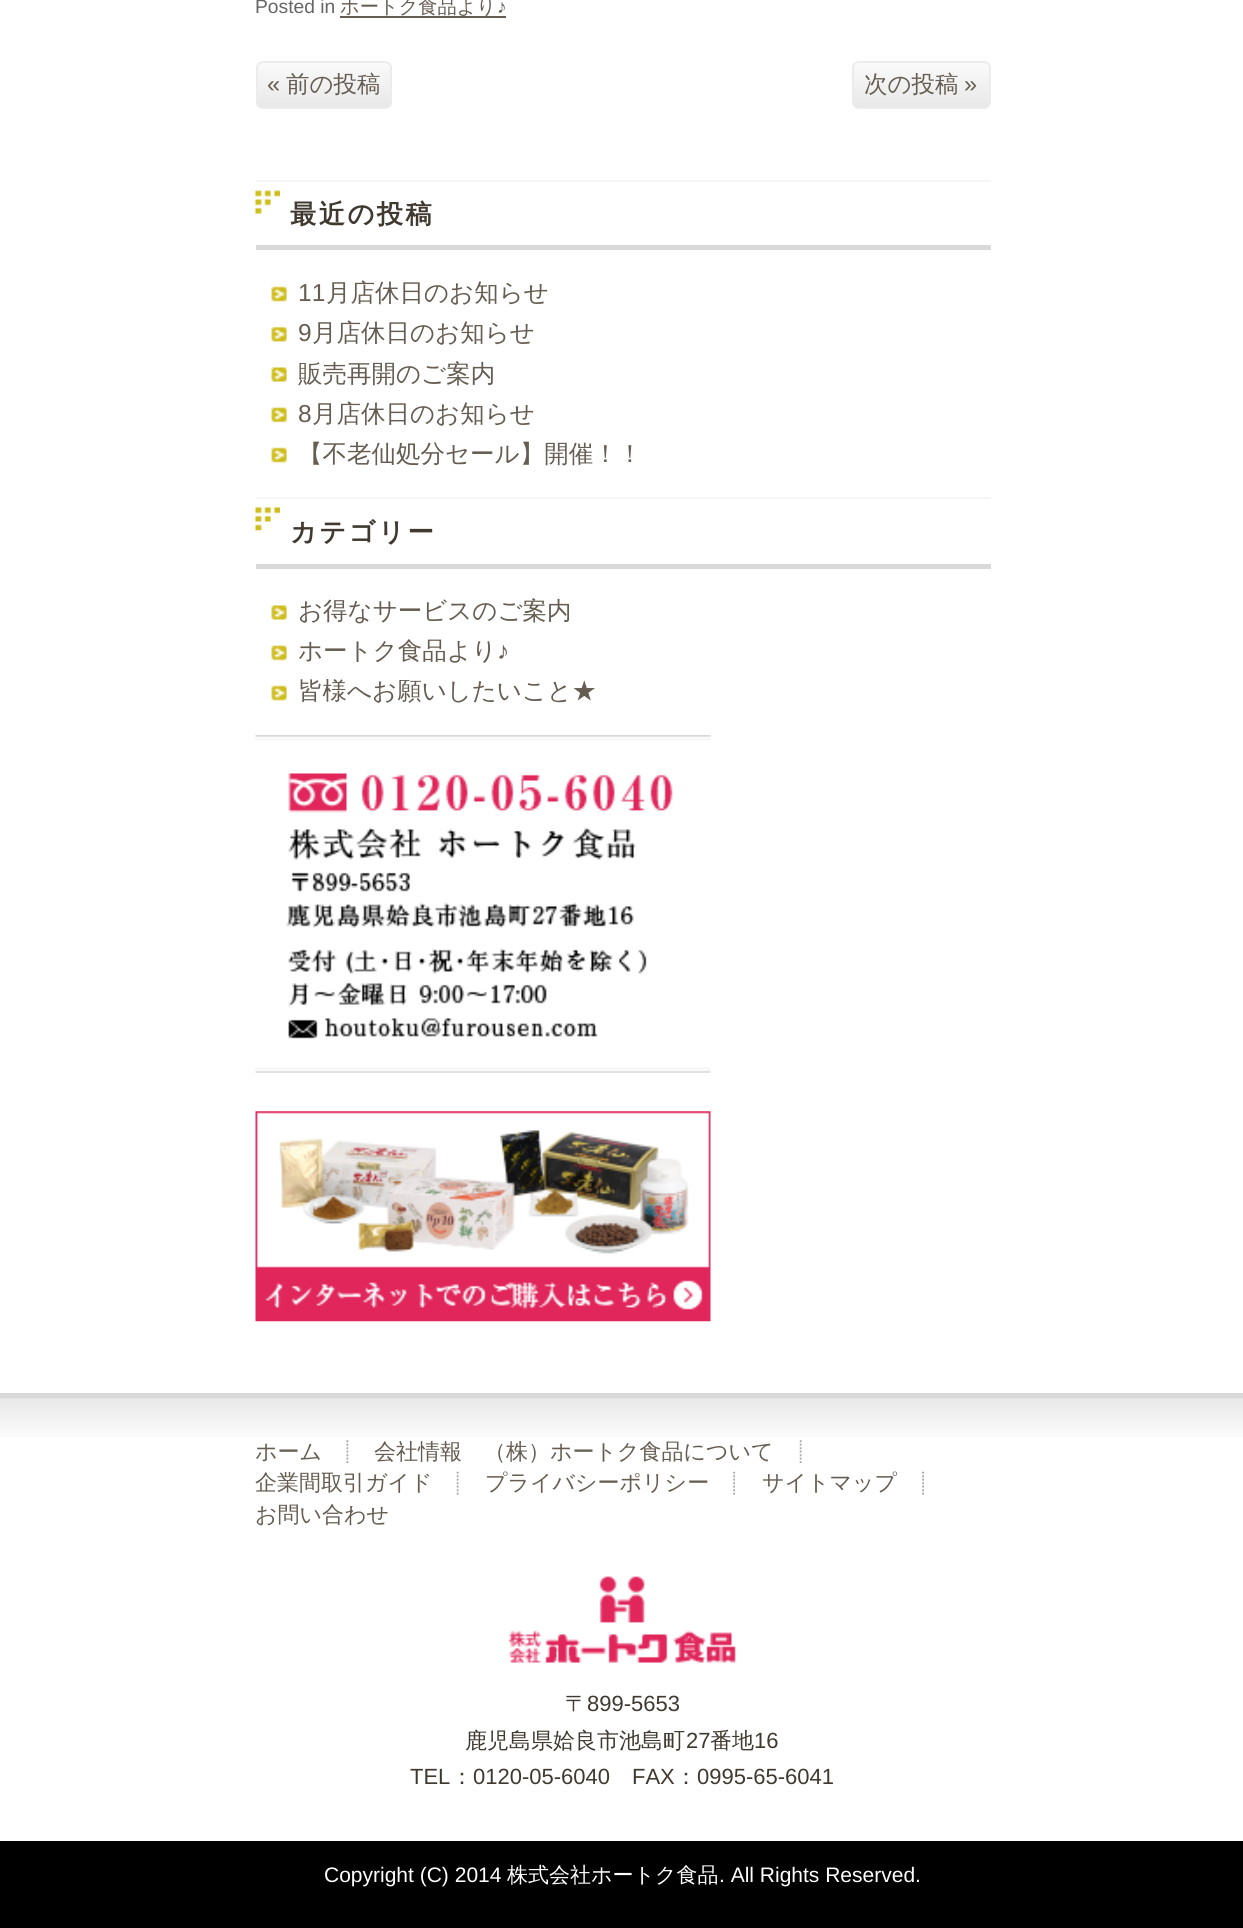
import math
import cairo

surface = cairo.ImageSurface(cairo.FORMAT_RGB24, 1243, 1928)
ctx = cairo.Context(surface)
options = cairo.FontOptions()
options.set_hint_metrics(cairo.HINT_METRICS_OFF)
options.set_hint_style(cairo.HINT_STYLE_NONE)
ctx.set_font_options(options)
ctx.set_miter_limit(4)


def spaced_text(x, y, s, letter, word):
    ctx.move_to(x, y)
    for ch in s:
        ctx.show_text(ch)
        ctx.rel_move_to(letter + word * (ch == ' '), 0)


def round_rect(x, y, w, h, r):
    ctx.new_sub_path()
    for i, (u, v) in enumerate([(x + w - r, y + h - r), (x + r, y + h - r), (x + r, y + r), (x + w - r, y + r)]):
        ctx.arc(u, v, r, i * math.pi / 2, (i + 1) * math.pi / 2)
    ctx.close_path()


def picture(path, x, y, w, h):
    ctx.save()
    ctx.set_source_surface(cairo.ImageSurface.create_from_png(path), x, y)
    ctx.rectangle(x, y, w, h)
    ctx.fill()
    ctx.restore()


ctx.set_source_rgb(1, 1, 1)
ctx.paint()
ctx.select_font_face("Liberation Sans")
ctx.set_font_size(19.25)
ctx.set_source_rgb(0.4, 0.4, 0.4)
ctx.move_to(255, 13)
ctx.show_text("Posted in")
ctx.set_source_rgb(0.4, 0.365, 0.322)
ctx.rectangle(340, 16, 166, 2)
ctx.fill()
ctx.select_font_face("WenQuanYi Zen Hei Medium")
ctx.move_to(340, 13)
ctx.show_text("ホートク食品より")
ctx.select_font_face("Liberation Sans")
ctx.move_to(497, 13)
ctx.show_text("♪")
ctx.save()
round_rect(256, 61, 136, 48, 7)
ctx.clip()
gradient = cairo.LinearGradient(257, 107, 257, 63)
gradient.add_color_stop_rgba(0, 0.91, 0.91, 0.91, 1)
gradient.add_color_stop_rgba(1, 0.98, 0.98, 0.98, 1)
ctx.set_source(gradient)
ctx.rectangle(256, 63, 136, 44)
ctx.fill()
ctx.restore()
round_rect(257, 62, 134, 46, 6)
ctx.set_source_rgb(0.922, 0.922, 0.922)
ctx.stroke()
ctx.set_font_size(23.5)
ctx.set_source_rgb(0.4, 0.365, 0.322)
ctx.move_to(267, 92)
ctx.show_text("«")
ctx.select_font_face("WenQuanYi Zen Hei Medium")
ctx.move_to(286, 92)
ctx.show_text("前の投稿")
ctx.save()
round_rect(852, 61, 139, 48, 7)
ctx.clip()
gradient = cairo.LinearGradient(854, 107, 854, 63)
gradient.add_color_stop_rgba(0, 0.91, 0.91, 0.91, 1)
gradient.add_color_stop_rgba(1, 0.98, 0.98, 0.98, 1)
ctx.set_source(gradient)
ctx.rectangle(852, 63, 139, 44)
ctx.fill()
ctx.restore()
round_rect(853, 62, 137, 46, 6)
ctx.set_source_rgb(0.922, 0.922, 0.922)
ctx.stroke()
ctx.set_source_rgb(0.4, 0.365, 0.322)
ctx.move_to(864, 92)
ctx.show_text("次の投稿")
ctx.select_font_face("Liberation Sans")
ctx.move_to(964, 92)
ctx.show_text("»")
picture("img1.png", 255, 190, 25, 24)
ctx.set_source_rgb(0.961, 0.961, 0.961)
ctx.rectangle(256, 180, 735, 2)
ctx.fill()
ctx.set_source_rgb(0.851, 0.851, 0.851)
ctx.rectangle(256, 245, 735, 5)
ctx.fill()
ctx.select_font_face("WenQuanYi Zen Hei", cairo.FONT_SLANT_NORMAL, cairo.FONT_WEIGHT_BOLD)
ctx.set_font_size(26.25)
ctx.set_source_rgb(0.251, 0.224, 0.188)
spaced_text(290, 223, "最近の投稿", 2.5, 0)
picture("img2.png", 271, 286, 16, 16)
ctx.select_font_face("Liberation Sans")
ctx.set_font_size(24.5)
ctx.set_source_rgb(0.4, 0.365, 0.322)
ctx.move_to(298, 301)
ctx.show_text("11")
ctx.select_font_face("WenQuanYi Zen Hei Medium")
ctx.move_to(326, 301)
ctx.show_text("月店休日のお知らせ")
picture("img3.png", 271, 326, 16, 16)
ctx.select_font_face("Liberation Sans")
ctx.move_to(298, 341)
ctx.show_text("9")
ctx.select_font_face("WenQuanYi Zen Hei Medium")
ctx.move_to(312, 341)
ctx.show_text("月店休日のお知らせ")
picture("img4.png", 271, 367, 16, 15)
ctx.move_to(298, 382)
ctx.show_text("販売再開のご案内")
picture("img5.png", 271, 407, 16, 16)
ctx.select_font_face("Liberation Sans")
ctx.move_to(298, 422)
ctx.show_text("8")
ctx.select_font_face("WenQuanYi Zen Hei Medium")
ctx.move_to(312, 422)
ctx.show_text("月店休日のお知らせ")
picture("img6.png", 271, 447, 16, 16)
ctx.move_to(298, 462)
ctx.show_text("【不老仙処分セール】開催！！")
picture("img7.png", 255, 507, 25, 24)
ctx.set_source_rgb(0.961, 0.961, 0.961)
ctx.rectangle(256, 497, 735, 2)
ctx.fill()
ctx.set_source_rgb(0.851, 0.851, 0.851)
ctx.rectangle(256, 564, 735, 5)
ctx.fill()
ctx.select_font_face("WenQuanYi Zen Hei", cairo.FONT_SLANT_NORMAL, cairo.FONT_WEIGHT_BOLD)
ctx.set_font_size(26.25)
ctx.set_source_rgb(0.251, 0.224, 0.188)
spaced_text(290, 541, "カテゴリー", 2.5, 0)
picture("img4.png", 271, 605, 16, 15)
ctx.select_font_face("WenQuanYi Zen Hei Medium")
ctx.set_font_size(24.5)
ctx.set_source_rgb(0.4, 0.365, 0.322)
ctx.move_to(298, 619)
ctx.show_text("お得なサービスのご案内")
picture("img5.png", 271, 645, 16, 16)
ctx.move_to(298, 659)
ctx.show_text("ホートク食品より")
ctx.select_font_face("Liberation Sans")
ctx.move_to(497, 659)
ctx.show_text("♪")
picture("img6.png", 271, 685, 16, 16)
ctx.select_font_face("WenQuanYi Zen Hei Medium")
ctx.move_to(298, 699)
ctx.show_text("皆様へお願いしたいこと★")
picture("img8.png", 255, 735, 456, 338)
picture("img9.png", 255, 1111, 456, 211)
picture("img10.png", 0, 1393, 1243, 44)
picture("img11.png", 346, 1440, 3, 23)
ctx.set_font_size(22)
ctx.move_to(255, 1459)
ctx.show_text("ホーム")
picture("img12.png", 799, 1440, 3, 23)
ctx.move_to(374, 1459)
ctx.show_text("会社情報　（株）ホートク食品について")
picture("img13.png", 456, 1471, 3, 24)
ctx.move_to(255, 1490)
ctx.show_text("企業間取引ガイド")
picture("img14.png", 733, 1471, 2, 24)
ctx.move_to(485, 1490)
ctx.show_text("プライバシーポリシー")
picture("img14.png", 922, 1471, 2, 24)
ctx.move_to(762, 1490)
ctx.show_text("サイトマップ")
ctx.move_to(255, 1522)
ctx.show_text("お問い合わせ")
picture("img15.png", 508, 1576, 228, 87)
ctx.set_source_rgb(0.251, 0.224, 0.188)
ctx.move_to(565, 1711)
ctx.show_text("〒")
ctx.select_font_face("Liberation Sans")
ctx.move_to(587, 1711)
ctx.show_text("899-5653")
ctx.select_font_face("WenQuanYi Zen Hei Medium")
ctx.move_to(465, 1748)
ctx.show_text("鹿児島県姶良市池島町")
ctx.select_font_face("Liberation Sans")
ctx.move_to(686, 1748)
ctx.show_text("27")
ctx.select_font_face("WenQuanYi Zen Hei Medium")
ctx.move_to(710, 1748)
ctx.show_text("番地")
ctx.select_font_face("Liberation Sans")
ctx.move_to(754, 1748)
ctx.show_text("16")
ctx.move_to(410, 1784)
ctx.show_text("TEL")
ctx.select_font_face("WenQuanYi Zen Hei Medium")
ctx.move_to(451, 1784)
ctx.show_text("：")
ctx.select_font_face("Liberation Sans")
ctx.move_to(473, 1784)
ctx.show_text("0120-05-6040")
ctx.move_to(632, 1784)
ctx.show_text("FAX")
ctx.select_font_face("WenQuanYi Zen Hei Medium")
ctx.move_to(675, 1784)
ctx.show_text("：")
ctx.select_font_face("Liberation Sans")
ctx.move_to(697, 1784)
ctx.show_text("0995-65-6041")
ctx.set_source_rgb(0, 0, 0)
ctx.rectangle(0, 1841, 1243, 87)
ctx.fill()
ctx.set_font_size(21)
ctx.set_source_rgb(1, 1, 1)
ctx.move_to(324, 1882)
ctx.show_text("Copyright (C) 2014")
ctx.select_font_face("WenQuanYi Zen Hei Medium")
ctx.move_to(507, 1882)
ctx.show_text("株式会社ホートク食品")
ctx.select_font_face("Liberation Sans")
ctx.move_to(719, 1882)
ctx.show_text(". All Rights Reserved.")
surface.write_to_png("page.png")
